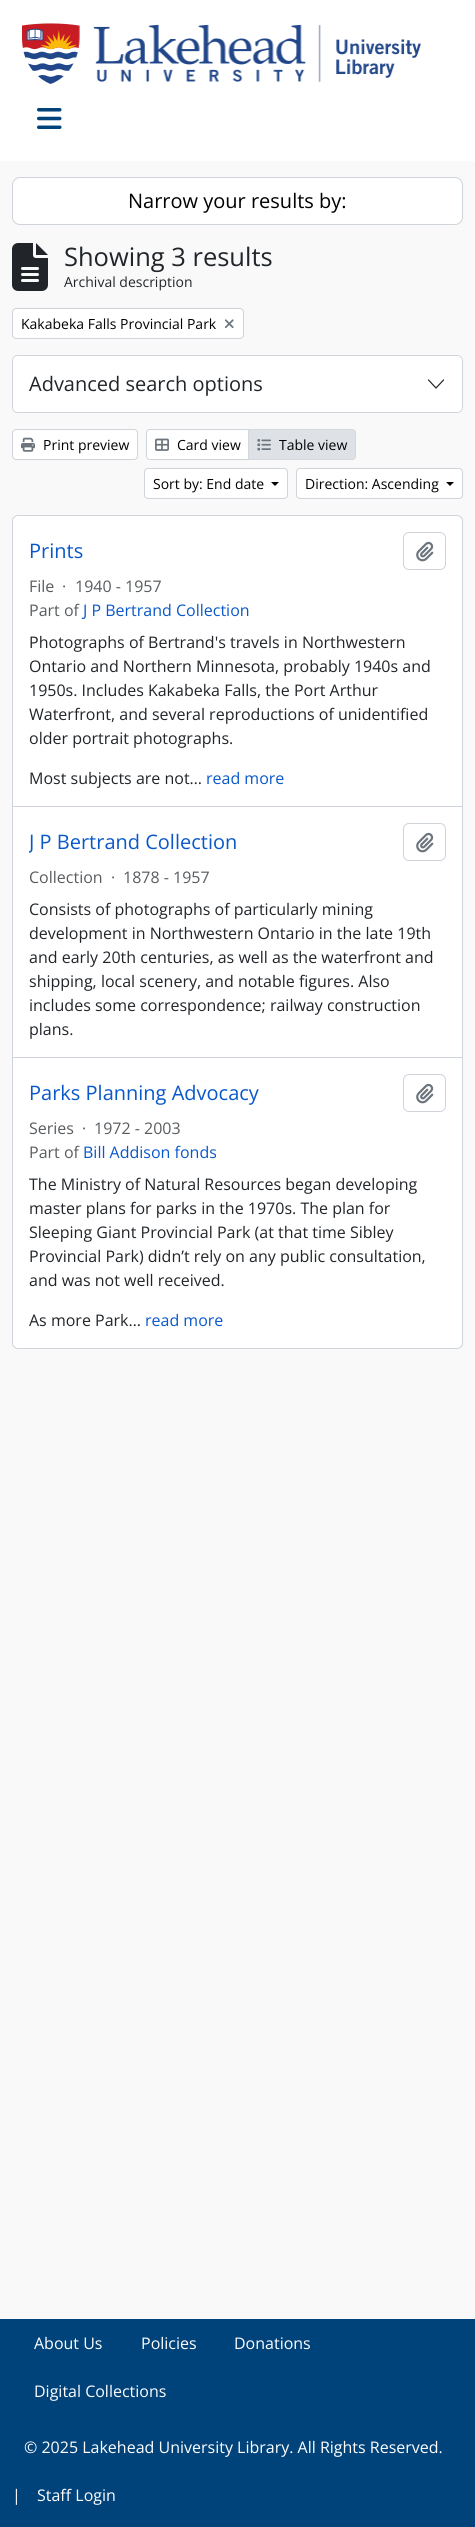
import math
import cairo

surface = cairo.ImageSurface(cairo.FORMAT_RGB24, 475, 2527)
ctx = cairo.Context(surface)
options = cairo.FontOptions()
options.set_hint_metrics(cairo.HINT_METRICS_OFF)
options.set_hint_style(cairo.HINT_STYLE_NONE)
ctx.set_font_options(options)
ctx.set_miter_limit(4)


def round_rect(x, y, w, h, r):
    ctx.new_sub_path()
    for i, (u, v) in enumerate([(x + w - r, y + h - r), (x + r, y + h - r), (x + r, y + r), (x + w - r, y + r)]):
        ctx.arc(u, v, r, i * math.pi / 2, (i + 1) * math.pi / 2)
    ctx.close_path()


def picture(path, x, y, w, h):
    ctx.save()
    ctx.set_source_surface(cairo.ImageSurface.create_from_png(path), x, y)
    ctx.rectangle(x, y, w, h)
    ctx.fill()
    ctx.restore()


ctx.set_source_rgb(0.973, 0.976, 0.98)
ctx.paint()
ctx.set_source_rgb(1, 1, 1)
ctx.rectangle(0, 0, 475, 161)
ctx.fill()
picture("img1.png", 22, 23, 399, 61)
picture("img2.png", 37, 108, 25, 21)
round_rect(12.5, 177.5, 450, 47, 7.5)
ctx.fill_preserve()
ctx.set_source_rgb(0.808, 0.831, 0.855)
ctx.set_line_width(1)
ctx.stroke()
ctx.select_font_face("Open Sans")
ctx.set_font_size(20)
ctx.set_source_rgb(0, 0, 0)
ctx.move_to(128, 208)
ctx.show_text("Narrow your results by:")
picture("img3.png", 12, 243, 36, 48)
ctx.set_font_size(25.5)
ctx.set_source_rgb(0.129, 0.145, 0.161)
ctx.move_to(64, 266)
ctx.show_text("Showing 3 results")
ctx.set_font_size(14)
ctx.move_to(64, 287)
ctx.show_text("Archival description")
ctx.set_source_rgb(1, 1, 1)
round_rect(12.5, 308.5, 231, 30, 3.5)
ctx.fill_preserve()
ctx.set_source_rgb(0.808, 0.831, 0.855)
ctx.stroke()
ctx.set_source_rgb(0, 0, 0)
ctx.move_to(21, 329)
ctx.show_text("Kakabeka Falls Provincial Park")
picture("img4.png", 224, 319, 10, 10)
round_rect(12.5, 355.5, 450, 57, 5.5)
ctx.set_source_rgb(0.808, 0.831, 0.855)
ctx.stroke()
ctx.set_source_rgb(1, 1, 1)
round_rect(13, 356, 449, 56, 5)
ctx.fill()
ctx.set_font_size(20)
ctx.set_source_rgb(0.129, 0.145, 0.161)
ctx.move_to(29, 391)
ctx.show_text("Advanced search options")
ctx.new_path()
ctx.move_to(428.5, 380)
ctx.line_to(436, 388)
ctx.line_to(443.5, 380)
ctx.set_line_width(1.2)
ctx.set_line_cap(cairo.LINE_CAP_ROUND)
ctx.set_line_join(cairo.LINE_JOIN_ROUND)
ctx.stroke()
ctx.set_source_rgb(1, 1, 1)
round_rect(12.5, 429.5, 125, 30, 3.5)
ctx.fill_preserve()
ctx.set_source_rgb(0.808, 0.831, 0.855)
ctx.set_line_width(1)
ctx.set_line_cap(cairo.LINE_CAP_BUTT)
ctx.set_line_join(cairo.LINE_JOIN_MITER)
ctx.stroke()
picture("img5.png", 21, 437, 14, 15)
ctx.set_font_size(14)
ctx.set_source_rgb(0, 0, 0)
ctx.move_to(43, 450)
ctx.show_text("Print preview")
ctx.set_source_rgb(1, 1, 1)
ctx.new_path()
ctx.move_to(150, 429.5)
ctx.line_to(248.5, 429.5)
ctx.line_to(248.5, 459.5)
ctx.line_to(150, 459.5)
ctx.curve_to(148, 459.5, 146.5, 458, 146.5, 456)
ctx.line_to(146.5, 433)
ctx.curve_to(146.5, 431, 148, 429.5, 150, 429.5)
ctx.close_path()
ctx.fill_preserve()
ctx.set_source_rgb(0.808, 0.831, 0.855)
ctx.stroke()
picture("img6.png", 155, 438, 14, 13)
ctx.set_source_rgb(0, 0, 0)
ctx.move_to(177, 450)
ctx.show_text("Card view")
ctx.set_source_rgb(0.871, 0.886, 0.902)
ctx.new_path()
ctx.move_to(248.5, 429.5)
ctx.line_to(352, 429.5)
ctx.curve_to(354, 429.5, 355.5, 431, 355.5, 433)
ctx.line_to(355.5, 456)
ctx.curve_to(355.5, 458, 354, 459.5, 352, 459.5)
ctx.line_to(248.5, 459.5)
ctx.close_path()
ctx.fill_preserve()
ctx.set_source_rgb(0.827, 0.847, 0.871)
ctx.stroke()
picture("img7.png", 257, 439, 14, 12)
ctx.set_source_rgb(0, 0, 0)
ctx.move_to(279, 450)
ctx.show_text("Table view")
ctx.set_source_rgb(1, 1, 1)
round_rect(144.5, 468.5, 143, 30, 3.5)
ctx.fill_preserve()
ctx.set_source_rgb(0.808, 0.831, 0.855)
ctx.stroke()
ctx.set_source_rgb(0, 0, 0)
ctx.move_to(153, 489)
ctx.show_text("Sort by: End date")
ctx.new_path()
ctx.move_to(271, 482)
ctx.line_to(279, 482)
ctx.line_to(275, 486)
ctx.close_path()
ctx.fill()
ctx.set_source_rgb(1, 1, 1)
round_rect(296.5, 468.5, 166, 30, 3.5)
ctx.fill_preserve()
ctx.set_source_rgb(0.808, 0.831, 0.855)
ctx.stroke()
ctx.set_source_rgb(0, 0, 0)
ctx.move_to(305, 489)
ctx.show_text("Direction: Ascending")
ctx.new_path()
ctx.move_to(446, 482)
ctx.line_to(454, 482)
ctx.line_to(450, 486)
ctx.close_path()
ctx.fill()
ctx.set_source_rgb(1, 1, 1)
round_rect(12.5, 515.5, 450, 833, 5.5)
ctx.fill_preserve()
ctx.set_source_rgb(0.808, 0.831, 0.855)
ctx.stroke()
ctx.rectangle(13, 806, 449, 1)
ctx.fill()
ctx.set_font_size(20)
ctx.set_source_rgb(0.039, 0.345, 0.792)
ctx.move_to(29, 558)
ctx.show_text("Prints")
round_rect(403.5, 532.5, 42, 37, 5.5)
ctx.set_source_rgb(0.808, 0.831, 0.855)
ctx.stroke()
picture("img8.png", 416, 541, 18, 21)
ctx.set_font_size(16)
ctx.set_source_rgb(0.349, 0.361, 0.373)
ctx.move_to(29, 592)
ctx.show_text("File")
ctx.move_to(62, 592)
ctx.show_text("·")
ctx.move_to(75, 592)
ctx.show_text("1940 - 1957")
ctx.move_to(29, 616)
ctx.show_text("Part of")
ctx.set_source_rgb(0.039, 0.345, 0.792)
ctx.move_to(83, 616)
ctx.show_text("J P Bertrand Collection")
ctx.set_source_rgb(0.129, 0.145, 0.161)
ctx.move_to(29, 648)
ctx.show_text("Photographs of Bertrand's travels in Northwestern")
ctx.move_to(29, 672)
ctx.show_text("Ontario and Northern Minnesota, probably 1940s and")
ctx.move_to(29, 696)
ctx.show_text("1950s. Includes Kakabeka Falls, the Port Arthur")
ctx.move_to(29, 720)
ctx.show_text("Waterfront, and several reproductions of unidentified")
ctx.move_to(29, 744)
ctx.show_text("older portrait photographs.")
ctx.move_to(29, 784)
ctx.show_text("Most subjects are not…")
ctx.set_source_rgb(0.039, 0.345, 0.792)
ctx.move_to(206, 784)
ctx.show_text("read more")
ctx.set_source_rgb(0.808, 0.831, 0.855)
ctx.rectangle(13, 1057, 449, 1)
ctx.fill()
ctx.save()
ctx.rectangle(29, 830, 208, 24)
ctx.clip()
ctx.set_font_size(20)
ctx.set_source_rgb(0.039, 0.345, 0.792)
ctx.move_to(29, 849)
ctx.show_text("J P Bertrand Collection")
ctx.restore()
round_rect(403.5, 823.5, 42, 37, 5.5)
ctx.stroke()
picture("img8.png", 416, 832, 18, 21)
ctx.set_source_rgb(0.349, 0.361, 0.373)
ctx.move_to(29, 883)
ctx.show_text("Collection")
ctx.move_to(111, 883)
ctx.show_text("·")
ctx.move_to(123, 883)
ctx.show_text("1878 - 1957")
ctx.set_source_rgb(0.129, 0.145, 0.161)
ctx.move_to(29, 915)
ctx.show_text("Consists of photographs of particularly mining")
ctx.move_to(29, 939)
ctx.show_text("development in Northwestern Ontario in the late 19th")
ctx.move_to(29, 963)
ctx.show_text("and early 20th centuries, as well as the waterfront and")
ctx.move_to(29, 987)
ctx.show_text("shipping, local scenery, and notable figures. Also")
ctx.move_to(29, 1011)
ctx.show_text("includes some correspondence; railway construction")
ctx.move_to(29, 1035)
ctx.show_text("plans.")
ctx.set_font_size(20)
ctx.set_source_rgb(0.039, 0.345, 0.792)
ctx.move_to(29, 1100)
ctx.show_text("Parks Planning Advocacy")
round_rect(403.5, 1074.5, 42, 37, 5.5)
ctx.set_source_rgb(0.808, 0.831, 0.855)
ctx.stroke()
picture("img8.png", 416, 1083, 18, 21)
ctx.set_font_size(16)
ctx.set_source_rgb(0.349, 0.361, 0.373)
ctx.move_to(29, 1134)
ctx.show_text("Series")
ctx.move_to(82, 1134)
ctx.show_text("·")
ctx.move_to(94, 1134)
ctx.show_text("1972 - 2003")
ctx.move_to(29, 1158)
ctx.show_text("Part of")
ctx.set_source_rgb(0.039, 0.345, 0.792)
ctx.move_to(83, 1158)
ctx.show_text("Bill Addison fonds")
ctx.set_source_rgb(0.129, 0.145, 0.161)
ctx.move_to(29, 1190)
ctx.show_text("The Ministry of Natural Resources began developing")
ctx.move_to(29, 1214)
ctx.show_text("master plans for parks in the 1970s. The plan for")
ctx.move_to(29, 1238)
ctx.show_text("Sleeping Giant Provincial Park (at that time Sibley")
ctx.move_to(29, 1262)
ctx.show_text("Provincial Park) didn’t rely on any public consultation,")
ctx.move_to(29, 1286)
ctx.show_text("and was not well received.")
ctx.move_to(29, 1326)
ctx.show_text("As more Park…")
ctx.set_source_rgb(0.039, 0.345, 0.792)
ctx.move_to(145, 1326)
ctx.show_text("read more")
ctx.set_source_rgb(0, 0.259, 0.478)
ctx.rectangle(0, 2319, 475, 208)
ctx.fill()
ctx.set_source_rgb(1, 1, 1)
ctx.move_to(34, 2349)
ctx.show_text("About Us")
ctx.move_to(141, 2349)
ctx.show_text("Policies")
ctx.move_to(234, 2349)
ctx.show_text("Donations")
ctx.move_to(34, 2397)
ctx.show_text("Digital Collections")
ctx.move_to(24, 2453)
ctx.show_text("© 2025 Lakehead University Library. All Rights Reserved.")
ctx.move_to(12, 2501)
ctx.show_text("|")
ctx.move_to(37, 2501)
ctx.show_text("Staff Login")
surface.write_to_png("page.png")
